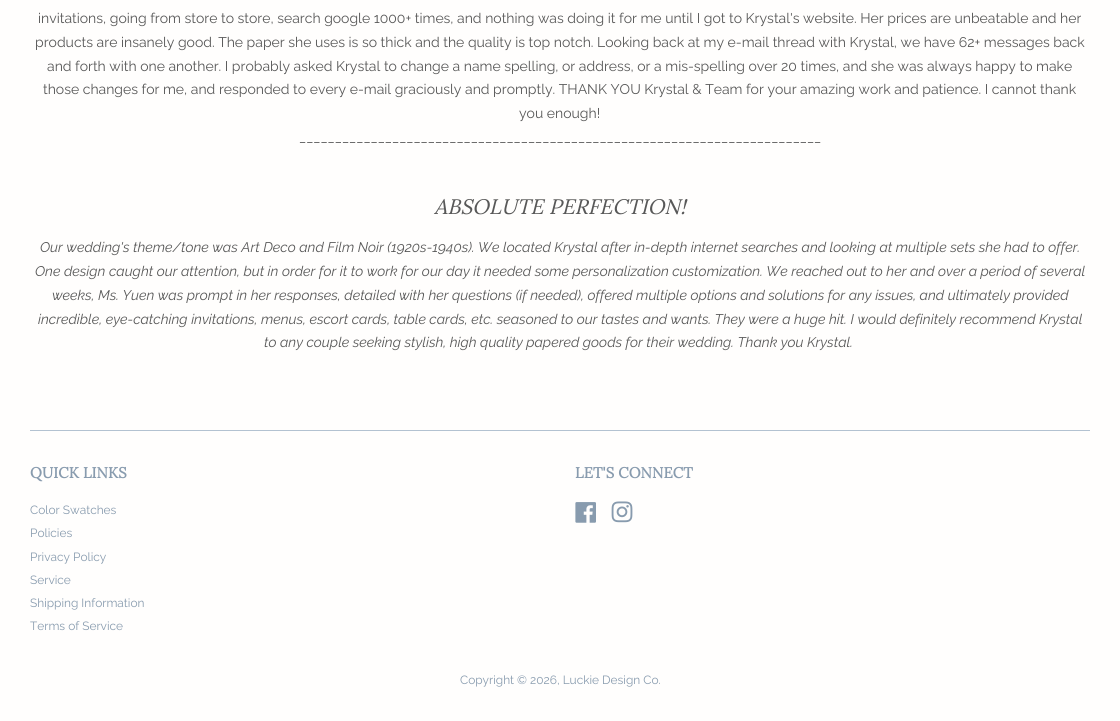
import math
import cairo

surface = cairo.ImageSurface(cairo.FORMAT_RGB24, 1120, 721)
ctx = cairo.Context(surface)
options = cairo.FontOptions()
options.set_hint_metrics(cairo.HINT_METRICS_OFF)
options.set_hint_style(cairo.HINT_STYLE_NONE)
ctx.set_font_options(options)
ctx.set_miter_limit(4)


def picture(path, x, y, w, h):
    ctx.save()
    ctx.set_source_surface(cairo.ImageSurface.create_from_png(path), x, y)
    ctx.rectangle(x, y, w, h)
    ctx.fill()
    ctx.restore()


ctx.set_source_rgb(1, 0.996, 0.992)
ctx.paint()
ctx.select_font_face("Raleway")
ctx.set_font_size(14)
ctx.set_source_rgb(0.345, 0.345, 0.345)
ctx.move_to(38, 23)
ctx.show_text("invitations, going from store to store, search google 1000+ times, and nothing was doing it for me until I got to Krystal's website. Her prices are unbeatable and her")
ctx.move_to(35, 47)
ctx.show_text("products are insanely good. The paper she uses is so thick and the quality is top notch. Looking back at my e-mail thread with Krystal, we have 62+ messages back")
ctx.move_to(47, 71)
ctx.show_text("and forth with one another. I probably asked Krystal to change a name spelling, or address, or a mis-spelling over 20 times, and she was always happy to make")
ctx.move_to(43, 94)
ctx.show_text("those changes for me, and responded to every e-mail graciously and promptly. THANK YOU Krystal & Team for your amazing work and patience. I cannot thank")
ctx.move_to(519, 118)
ctx.show_text("you enough!")
ctx.move_to(299, 142)
ctx.show_text("_________________________________________________________________________")
ctx.select_font_face("Lora", cairo.FONT_SLANT_ITALIC)
ctx.set_font_size(21)
ctx.move_to(434, 214)
ctx.show_text("ABSOLUTE PERFECTION!")
ctx.select_font_face("Raleway", cairo.FONT_SLANT_ITALIC)
ctx.set_font_size(14)
ctx.move_to(40, 252)
ctx.show_text("Our wedding's theme/tone was Art Deco and Film Noir (1920s-1940s). We located Krystal after in-depth internet searches and looking at multiple sets she had to offer.")
ctx.move_to(35, 276)
ctx.show_text("One design caught our attention, but in order for it to work for our day it needed some personalization customization. We reached out to her and over a period of several")
ctx.move_to(52, 300)
ctx.show_text("weeks, Ms. Yuen was prompt in her responses, detailed with her questions (if needed), offered multiple options and solutions for any issues, and ultimately provided")
ctx.move_to(38, 324)
ctx.show_text("incredible, eye-catching invitations, menus, escort cards, table cards, etc. seasoned to our tastes and wants. They were a huge hit. I would definitely recommend Krystal")
ctx.move_to(264, 347)
ctx.show_text("to any couple seeking stylish, high quality papered goods for their wedding. Thank you Krystal.")
ctx.set_source_rgb(0.702, 0.761, 0.82)
ctx.rectangle(30, 430, 1060, 1)
ctx.fill()
ctx.select_font_face("Lora", cairo.FONT_SLANT_NORMAL, cairo.FONT_WEIGHT_BOLD)
ctx.set_font_size(15)
ctx.set_source_rgb(0.533, 0.608, 0.682)
ctx.move_to(30, 478)
ctx.show_text("QUICK LINKS")
ctx.select_font_face("Raleway")
ctx.set_font_size(11.9)
ctx.move_to(30, 514)
ctx.show_text("Color Swatches")
ctx.move_to(30, 537)
ctx.show_text("Policies")
ctx.move_to(30, 561)
ctx.show_text("Privacy Policy")
ctx.move_to(30, 584)
ctx.show_text("Service")
ctx.move_to(30, 607)
ctx.show_text("Shipping Information")
ctx.move_to(30, 630)
ctx.show_text("Terms of Service")
ctx.select_font_face("Lora", cairo.FONT_SLANT_NORMAL, cairo.FONT_WEIGHT_BOLD)
ctx.set_font_size(15)
ctx.move_to(575, 478)
ctx.show_text("LET'S CONNECT")
picture("img1.png", 575, 502, 21, 21)
picture("img2.png", 611, 501, 22, 22)
ctx.select_font_face("Raleway")
ctx.set_font_size(11.9)
ctx.move_to(460, 684)
ctx.show_text("Copyright © 2026, Luckie Design Co.")
surface.write_to_png("page.png")
